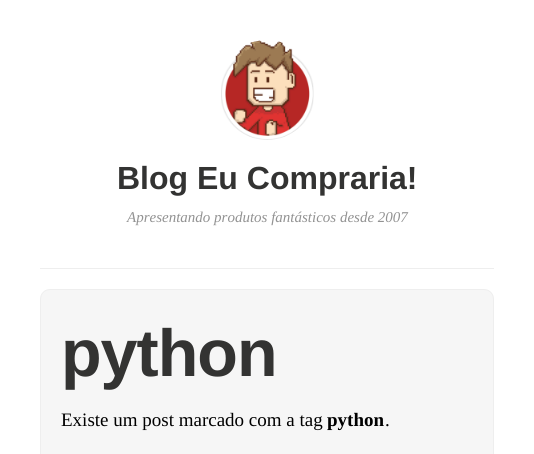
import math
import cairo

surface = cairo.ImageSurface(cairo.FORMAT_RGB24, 534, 454)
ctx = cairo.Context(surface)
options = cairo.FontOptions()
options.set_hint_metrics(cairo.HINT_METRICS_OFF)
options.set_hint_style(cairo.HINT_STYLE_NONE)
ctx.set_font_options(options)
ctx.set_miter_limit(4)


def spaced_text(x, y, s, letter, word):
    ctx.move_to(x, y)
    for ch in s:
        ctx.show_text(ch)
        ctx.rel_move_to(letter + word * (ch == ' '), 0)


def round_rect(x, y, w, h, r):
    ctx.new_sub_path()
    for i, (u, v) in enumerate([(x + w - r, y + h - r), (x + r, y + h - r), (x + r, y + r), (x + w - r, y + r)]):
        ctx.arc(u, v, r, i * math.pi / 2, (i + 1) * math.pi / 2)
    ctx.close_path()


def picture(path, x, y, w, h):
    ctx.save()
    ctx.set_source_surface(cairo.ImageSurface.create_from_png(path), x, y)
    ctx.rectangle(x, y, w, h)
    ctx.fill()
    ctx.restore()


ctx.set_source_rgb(1, 1, 1)
ctx.paint()
picture("img1.png", 221, 40, 93, 100)
ctx.select_font_face("Liberation Sans", cairo.FONT_SLANT_NORMAL, cairo.FONT_WEIGHT_BOLD)
ctx.set_font_size(32)
ctx.set_source_rgb(0.2, 0.2, 0.196)
ctx.move_to(117, 189)
ctx.show_text("Blog Eu Compraria!")
ctx.select_font_face("Liberation Serif", cairo.FONT_SLANT_ITALIC)
ctx.set_font_size(15)
ctx.set_source_rgb(0.573, 0.573, 0.573)
ctx.move_to(127, 222)
ctx.show_text("Apresentando produtos fantásticos desde 2007")
ctx.set_source_rgb(0.933, 0.933, 0.933)
ctx.rectangle(40, 268, 454, 1)
ctx.fill()
ctx.set_source_rgb(0.961, 0.961, 0.961)
round_rect(40.5, 289.5, 453, 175, 9.5)
ctx.fill_preserve()
ctx.set_source_rgb(0.933, 0.933, 0.933)
ctx.set_line_width(1)
ctx.stroke()
ctx.select_font_face("Liberation Sans", cairo.FONT_SLANT_NORMAL, cairo.FONT_WEIGHT_BOLD)
ctx.set_font_size(66.5)
ctx.set_source_rgb(0.2, 0.2, 0.196)
spaced_text(61, 376, "python", -1, 0)
ctx.select_font_face("Liberation Serif")
ctx.set_font_size(19)
ctx.set_source_rgb(0, 0, 0)
ctx.move_to(61, 426)
ctx.show_text("Existe um post marcado com a tag")
ctx.select_font_face("Liberation Serif", cairo.FONT_SLANT_NORMAL, cairo.FONT_WEIGHT_BOLD)
ctx.move_to(327, 426)
ctx.show_text("python")
ctx.select_font_face("Liberation Serif")
ctx.move_to(385, 426)
ctx.show_text(".")
surface.write_to_png("page.png")
